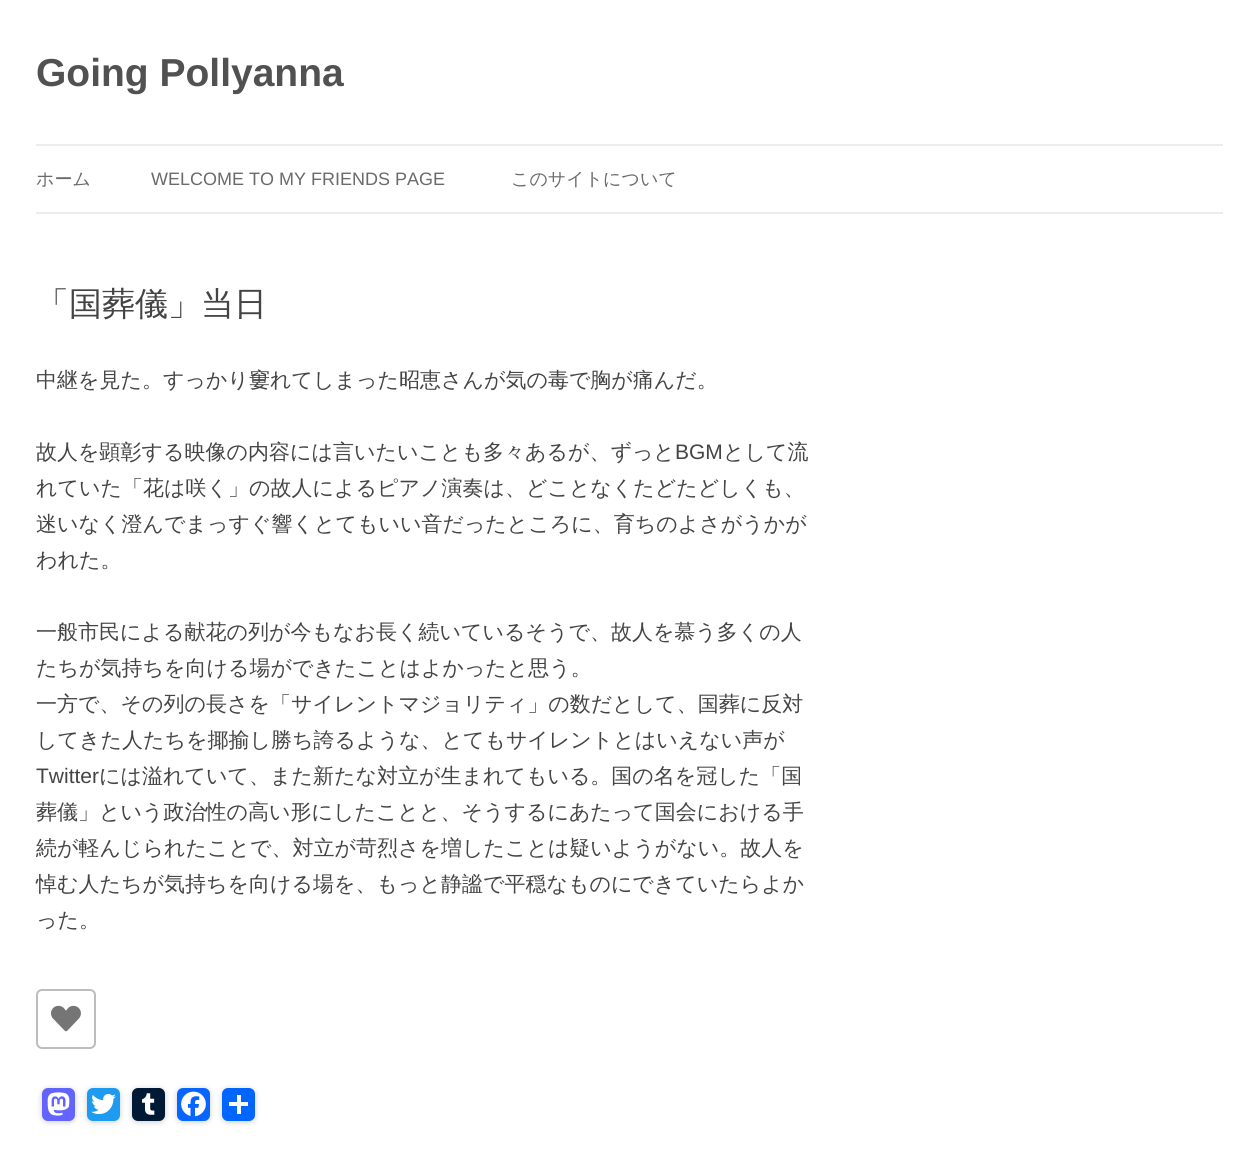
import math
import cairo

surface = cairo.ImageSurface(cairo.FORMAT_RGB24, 1258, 1158)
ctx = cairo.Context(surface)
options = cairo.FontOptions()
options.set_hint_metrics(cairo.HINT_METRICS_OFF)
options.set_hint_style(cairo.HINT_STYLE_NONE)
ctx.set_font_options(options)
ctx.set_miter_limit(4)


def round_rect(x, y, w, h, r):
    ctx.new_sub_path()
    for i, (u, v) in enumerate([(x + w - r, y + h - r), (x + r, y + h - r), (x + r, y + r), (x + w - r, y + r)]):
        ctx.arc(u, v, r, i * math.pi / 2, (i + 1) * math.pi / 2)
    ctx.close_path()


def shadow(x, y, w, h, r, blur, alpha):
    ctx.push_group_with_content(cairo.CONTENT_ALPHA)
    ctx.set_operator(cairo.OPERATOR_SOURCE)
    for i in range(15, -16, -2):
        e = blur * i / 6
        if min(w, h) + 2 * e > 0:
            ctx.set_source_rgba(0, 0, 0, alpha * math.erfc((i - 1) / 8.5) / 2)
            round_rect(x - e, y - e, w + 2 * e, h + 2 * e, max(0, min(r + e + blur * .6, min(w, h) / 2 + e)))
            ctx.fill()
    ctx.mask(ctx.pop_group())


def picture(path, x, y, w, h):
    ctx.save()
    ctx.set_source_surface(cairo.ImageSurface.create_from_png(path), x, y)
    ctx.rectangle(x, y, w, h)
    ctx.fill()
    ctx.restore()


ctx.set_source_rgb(1, 1, 1)
ctx.paint()
ctx.select_font_face("Liberation Sans", cairo.FONT_SLANT_NORMAL, cairo.FONT_WEIGHT_BOLD)
ctx.set_font_size(39)
ctx.set_source_rgb(0.318, 0.318, 0.318)
ctx.move_to(36, 86)
ctx.show_text("Going Pollyanna")
ctx.set_source_rgb(0.929, 0.929, 0.929)
ctx.rectangle(36, 144, 1187, 2)
ctx.fill()
ctx.rectangle(36, 212, 1187, 2)
ctx.fill()
ctx.select_font_face("WenQuanYi Zen Hei Medium")
ctx.set_font_size(18)
ctx.set_source_rgb(0.416, 0.416, 0.416)
ctx.move_to(36, 185)
ctx.show_text("ホーム")
ctx.select_font_face("Liberation Sans")
ctx.move_to(151, 185)
ctx.show_text("WELCOME TO MY FRIENDS PAGE")
ctx.select_font_face("WenQuanYi Zen Hei Medium")
ctx.move_to(511, 185)
ctx.show_text("このサイトについて")
ctx.set_font_size(33)
ctx.set_source_rgb(0.267, 0.267, 0.267)
ctx.move_to(36, 315)
ctx.show_text("「国葬儀」当日")
ctx.set_font_size(21)
ctx.move_to(36, 387)
ctx.show_text("中継を見た。すっかり窶れてしまった昭恵さんが気の毒で胸が痛んだ。")
ctx.move_to(36, 459)
ctx.show_text("故人を顕彰する映像の内容には言いたいことも多々あるが、ずっと")
ctx.select_font_face("Liberation Sans")
ctx.move_to(675, 459)
ctx.show_text("BGM")
ctx.select_font_face("WenQuanYi Zen Hei Medium")
ctx.move_to(723, 459)
ctx.show_text("として流")
ctx.move_to(36, 495)
ctx.show_text("れていた「花は咲く」の故人によるピアノ演奏は、どことなくたどたどしくも、")
ctx.move_to(36, 531)
ctx.show_text("迷いなく澄んでまっすぐ響くとてもいい音だったところに、育ちのよさがうかが")
ctx.move_to(36, 567)
ctx.show_text("われた。")
ctx.move_to(36, 639)
ctx.show_text("一般市民による献花の列が今もなお長く続いているそうで、故人を慕う多くの人")
ctx.move_to(36, 675)
ctx.show_text("たちが気持ちを向ける場ができたことはよかったと思う。")
ctx.move_to(36, 711)
ctx.show_text("一方で、その列の長さを「サイレントマジョリティ」の数だとして、国葬に反対")
ctx.move_to(36, 747)
ctx.show_text("してきた人たちを揶揄し勝ち誇るような、とてもサイレントとはいえない声が")
ctx.select_font_face("Liberation Sans")
ctx.move_to(36, 783)
ctx.show_text("Twitter")
ctx.select_font_face("WenQuanYi Zen Hei Medium")
ctx.move_to(99, 783)
ctx.show_text("には溢れていて、また新たな対立が生まれてもいる。国の名を冠した「国")
ctx.move_to(36, 819)
ctx.show_text("葬儀」という政治性の高い形にしたことと、そうするにあたって国会における手")
ctx.move_to(36, 855)
ctx.show_text("続が軽んじられたことで、対立が苛烈さを増したことは疑いようがない。故人を")
ctx.move_to(36, 891)
ctx.show_text("悼む人たちが気持ちを向ける場を、もっと静謐で平穏なものにできていたらよか")
ctx.move_to(36, 927)
ctx.show_text("った。")
round_rect(37, 990, 58, 58, 5)
ctx.set_source_rgb(0.741, 0.741, 0.741)
ctx.stroke()
picture("img1.png", 51, 1005, 30, 27)
ctx.set_source_rgb(0, 0, 0)
shadow(42, 1089, 33, 33, 6, 3, 0.2)
ctx.set_source_rgb(0.388, 0.392, 1)
round_rect(42, 1088, 33, 33, 6)
ctx.fill()
picture("img2.png", 47, 1092, 23, 24)
ctx.set_source_rgb(0, 0, 0)
shadow(87, 1089, 33, 33, 6, 3, 0.2)
ctx.set_source_rgb(0.114, 0.608, 0.941)
round_rect(87, 1088, 33, 33, 6)
ctx.fill()
picture("img3.png", 91, 1093, 25, 22)
ctx.set_source_rgb(0, 0, 0)
shadow(132, 1089, 33, 33, 6, 3, 0.2)
ctx.set_source_rgb(0, 0.098, 0.208)
round_rect(132, 1088, 33, 33, 6)
ctx.fill()
picture("img4.png", 142, 1093, 13, 22)
ctx.set_source_rgb(0, 0, 0)
shadow(177, 1089, 33, 33, 6, 3, 0.2)
ctx.set_source_rgb(0.031, 0.4, 1)
round_rect(177, 1088, 33, 33, 6)
ctx.fill()
picture("img5.png", 181, 1091, 25, 26)
ctx.set_source_rgb(0, 0, 0)
shadow(222, 1089, 33, 33, 6, 3, 0.2)
ctx.set_source_rgb(0.004, 0.4, 1)
round_rect(222, 1088, 33, 33, 6)
ctx.fill()
ctx.set_source_rgb(1, 1, 1)
ctx.rectangle(237, 1095, 4, 19)
ctx.fill()
ctx.rectangle(229, 1102, 19, 4)
ctx.fill()
surface.write_to_png("page.png")
